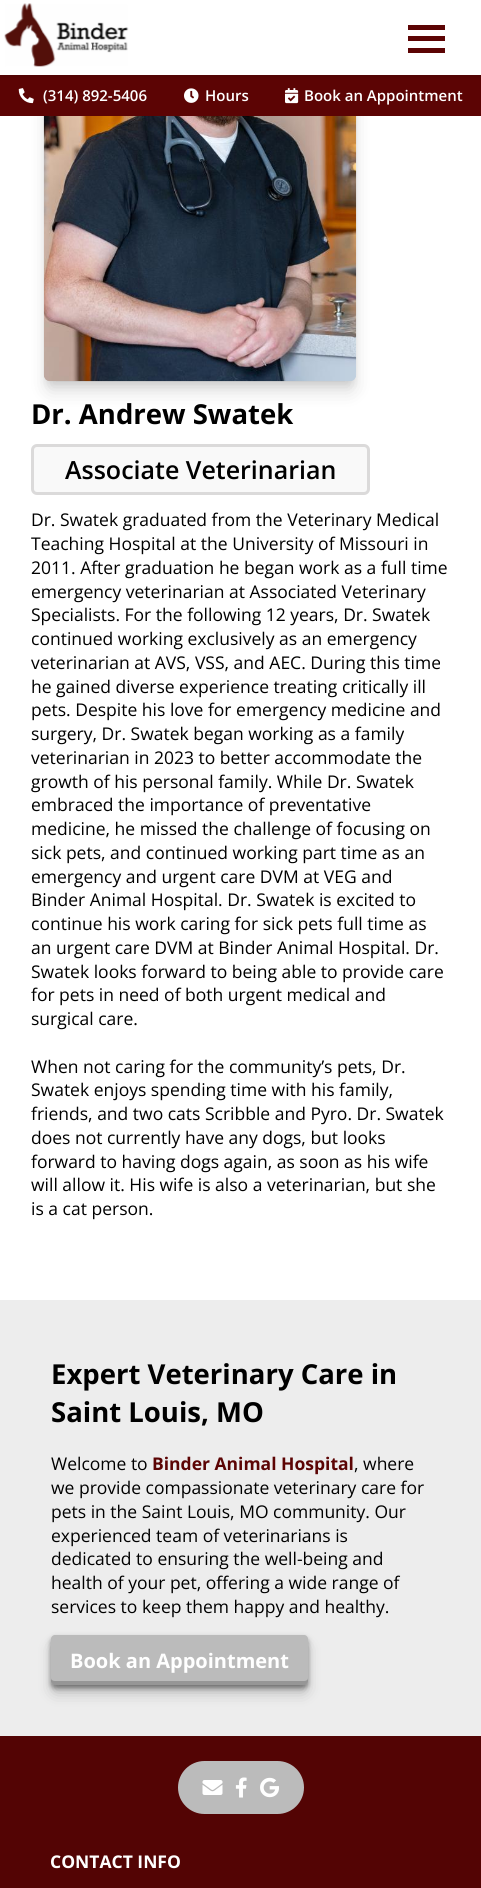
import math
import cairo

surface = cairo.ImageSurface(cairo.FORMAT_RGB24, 481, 1888)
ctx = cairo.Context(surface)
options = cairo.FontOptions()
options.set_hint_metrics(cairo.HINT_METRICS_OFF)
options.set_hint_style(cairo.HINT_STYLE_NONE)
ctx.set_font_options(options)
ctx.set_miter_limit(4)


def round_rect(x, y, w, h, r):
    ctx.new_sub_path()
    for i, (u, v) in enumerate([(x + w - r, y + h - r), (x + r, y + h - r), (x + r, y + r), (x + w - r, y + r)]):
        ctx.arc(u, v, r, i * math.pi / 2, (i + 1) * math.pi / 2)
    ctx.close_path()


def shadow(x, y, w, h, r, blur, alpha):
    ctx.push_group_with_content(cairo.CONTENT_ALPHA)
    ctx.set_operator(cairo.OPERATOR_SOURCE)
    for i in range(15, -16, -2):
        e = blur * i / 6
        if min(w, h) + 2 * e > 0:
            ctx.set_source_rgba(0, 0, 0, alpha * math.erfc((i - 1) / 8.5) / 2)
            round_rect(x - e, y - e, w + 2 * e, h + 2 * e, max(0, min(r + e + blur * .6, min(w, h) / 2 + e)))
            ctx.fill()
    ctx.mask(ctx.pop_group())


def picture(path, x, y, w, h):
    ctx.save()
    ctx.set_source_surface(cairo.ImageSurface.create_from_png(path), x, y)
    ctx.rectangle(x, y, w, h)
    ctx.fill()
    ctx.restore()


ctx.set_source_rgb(1, 1, 1)
ctx.paint()
ctx.set_source_rgb(0, 0, 0)
shadow(46, -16, 308, 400, 4, 4, 0.1)
shadow(48, -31, 305, 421, 2.5, 9.5, 0.15)
ctx.set_source_rgb(0.361, 0.016, 0.016)
ctx.rectangle(0, 75, 481, 41)
ctx.fill()
ctx.set_source_rgb(0, 0, 0)
shadow(0, 1, 481, 75, 0, 2.5, 0.2)
ctx.set_source_rgb(1, 1, 1)
ctx.rectangle(0, 0, 481, 75)
ctx.fill()
picture("img1.png", 4, 3, 125, 64)
ctx.set_source_rgb(0.361, 0.016, 0.016)
ctx.rectangle(408, 25, 37, 5)
ctx.fill()
ctx.rectangle(408, 36, 37, 5)
ctx.fill()
ctx.rectangle(408, 48, 37, 5)
ctx.fill()
picture("img2.png", 18, 88, 16, 16)
ctx.select_font_face("Open Sans SemiBold")
ctx.set_font_size(15)
ctx.set_source_rgb(1, 1, 1)
ctx.move_to(43, 101)
ctx.show_text("(314) 892-5406")
picture("img3.png", 184, 88, 15, 15)
ctx.move_to(205, 101)
ctx.show_text("Hours")
picture("img4.png", 285, 88, 14, 16)
ctx.move_to(304, 101)
ctx.show_text("Book an Appointment")
picture("img5.png", 43, 116, 314, 266)
ctx.select_font_face("Open Sans", cairo.FONT_SLANT_NORMAL, cairo.FONT_WEIGHT_BOLD)
ctx.set_font_size(27.5)
ctx.set_source_rgb(0, 0, 0)
ctx.move_to(31, 424)
ctx.show_text("Dr. Andrew Swatek")
ctx.set_source_rgb(0.976, 0.976, 0.976)
round_rect(32.5, 445.5, 336, 48, 4.5)
ctx.fill_preserve()
ctx.set_source_rgb(0.859, 0.855, 0.855)
ctx.set_line_width(3)
ctx.stroke()
ctx.select_font_face("Open Sans SemiBold")
ctx.set_font_size(25)
ctx.set_source_rgb(0, 0, 0)
ctx.move_to(65, 479)
ctx.show_text("Associate Veterinarian")
ctx.select_font_face("Open Sans")
ctx.set_font_size(17.5)
ctx.move_to(31, 526)
ctx.show_text("Dr. Swatek graduated from the Veterinary Medical")
ctx.move_to(31, 550)
ctx.show_text("Teaching Hospital at the University of Missouri in")
ctx.move_to(31, 574)
ctx.show_text("2011. After graduation he began work as a full time")
ctx.move_to(31, 598)
ctx.show_text("emergency veterinarian at Associated Veterinary")
ctx.move_to(31, 621)
ctx.show_text("Specialists. For the following 12 years, Dr. Swatek")
ctx.move_to(31, 645)
ctx.show_text("continued working exclusively as an emergency")
ctx.move_to(31, 669)
ctx.show_text("veterinarian at AVS, VSS, and AEC. During this time")
ctx.move_to(31, 693)
ctx.show_text("he gained diverse experience treating critically ill")
ctx.move_to(31, 716)
ctx.show_text("pets. Despite his love for emergency medicine and")
ctx.move_to(31, 740)
ctx.show_text("surgery, Dr. Swatek began working as a family")
ctx.move_to(31, 764)
ctx.show_text("veterinarian in 2023 to better accommodate the")
ctx.move_to(31, 788)
ctx.show_text("growth of his personal family. While Dr. Swatek")
ctx.move_to(31, 811)
ctx.show_text("embraced the importance of preventative")
ctx.move_to(31, 835)
ctx.show_text("medicine, he missed the challenge of focusing on")
ctx.move_to(31, 859)
ctx.show_text("sick pets, and continued working part time as an")
ctx.move_to(31, 883)
ctx.show_text("emergency and urgent care DVM at VEG and")
ctx.move_to(31, 906)
ctx.show_text("Binder Animal Hospital. Dr. Swatek is excited to")
ctx.move_to(31, 930)
ctx.show_text("continue his work caring for sick pets full time as")
ctx.move_to(31, 954)
ctx.show_text("an urgent care DVM at Binder Animal Hospital. Dr.")
ctx.move_to(31, 978)
ctx.show_text("Swatek looks forward to being able to provide care")
ctx.move_to(31, 1001)
ctx.show_text("for pets in need of both urgent medical and")
ctx.move_to(31, 1025)
ctx.show_text("surgical care.")
ctx.move_to(31, 1073)
ctx.show_text("When not caring for the community’s pets, Dr.")
ctx.move_to(31, 1096)
ctx.show_text("Swatek enjoys spending time with his family,")
ctx.move_to(31, 1120)
ctx.show_text("friends, and two cats Scribble and Pyro. Dr. Swatek")
ctx.move_to(31, 1144)
ctx.show_text("does not currently have any dogs, but looks")
ctx.move_to(31, 1168)
ctx.show_text("forward to having dogs again, as soon as his wife")
ctx.move_to(31, 1191)
ctx.show_text("will allow it. His wife is also a veterinarian, but she")
ctx.move_to(31, 1215)
ctx.show_text("is a cat person.")
ctx.set_source_rgb(0.929, 0.929, 0.929)
ctx.rectangle(0, 1300, 481, 436)
ctx.fill()
ctx.select_font_face("Open Sans", cairo.FONT_SLANT_NORMAL, cairo.FONT_WEIGHT_BOLD)
ctx.set_font_size(27.5)
ctx.set_source_rgb(0, 0, 0)
ctx.move_to(51, 1384)
ctx.show_text("Expert Veterinary Care in")
ctx.move_to(51, 1422)
ctx.show_text("Saint Louis, MO")
ctx.select_font_face("Open Sans")
ctx.set_font_size(17.5)
ctx.move_to(51, 1470)
ctx.show_text("Welcome to")
ctx.select_font_face("Open Sans", cairo.FONT_SLANT_NORMAL, cairo.FONT_WEIGHT_BOLD)
ctx.set_source_rgb(0.361, 0.016, 0.016)
ctx.move_to(152, 1470)
ctx.show_text("Binder Animal Hospital")
ctx.select_font_face("Open Sans")
ctx.set_source_rgb(0, 0, 0)
ctx.move_to(354, 1470)
ctx.show_text(", where")
ctx.move_to(51, 1494)
ctx.show_text("we provide compassionate veterinary care for")
ctx.move_to(51, 1518)
ctx.show_text("pets in the Saint Louis, MO community. Our")
ctx.move_to(51, 1542)
ctx.show_text("experienced team of veterinarians is")
ctx.move_to(51, 1565)
ctx.show_text("dedicated to ensuring the well-being and")
ctx.move_to(51, 1589)
ctx.show_text("health of your pet, offering a wide range of")
ctx.move_to(51, 1613)
ctx.show_text("services to keep them happy and healthy.")
ctx.set_source_rgb(0, 0, 0)
shadow(55, 1648, 249, 42, 0, 8, 0.3)
shadow(51, 1638, 257, 50, 4, 2.5, 0.4)
ctx.set_source_rgb(0.733, 0.733, 0.733)
round_rect(51, 1635, 257, 50, 4)
ctx.fill()
ctx.set_source_rgba(0, 0, 0, 0.2)
ctx.new_path()
ctx.move_to(51, 1678)
ctx.line_to(51, 1681)
ctx.curve_to(51, 1683, 53, 1685, 55, 1685)
ctx.line_to(304, 1685)
ctx.curve_to(306, 1685, 308, 1683, 308, 1681)
ctx.line_to(308, 1678)
ctx.curve_to(308, 1680, 306, 1681, 304, 1681)
ctx.line_to(55, 1681)
ctx.curve_to(53, 1681, 51, 1680, 51, 1678)
ctx.close_path()
ctx.fill()
ctx.select_font_face("Open Sans", cairo.FONT_SLANT_NORMAL, cairo.FONT_WEIGHT_BOLD)
ctx.set_font_size(20)
ctx.set_source_rgb(1, 1, 1)
ctx.move_to(70, 1668)
ctx.show_text("Book an Appointment")
ctx.set_source_rgb(0.325, 0.016, 0.016)
ctx.rectangle(0, 1736, 481, 152)
ctx.fill()
ctx.set_source_rgb(0.733, 0.733, 0.733)
round_rect(178, 1761, 126, 53, 26.5)
ctx.fill()
picture("img6.png", 202, 1780, 21, 15)
picture("img7.png", 235, 1777, 12, 21)
picture("img8.png", 260, 1777, 19, 21)
ctx.set_font_size(17.5)
ctx.set_source_rgb(1, 1, 1)
ctx.move_to(50, 1868)
ctx.show_text("CONTACT INFO")
surface.write_to_png("page.png")
